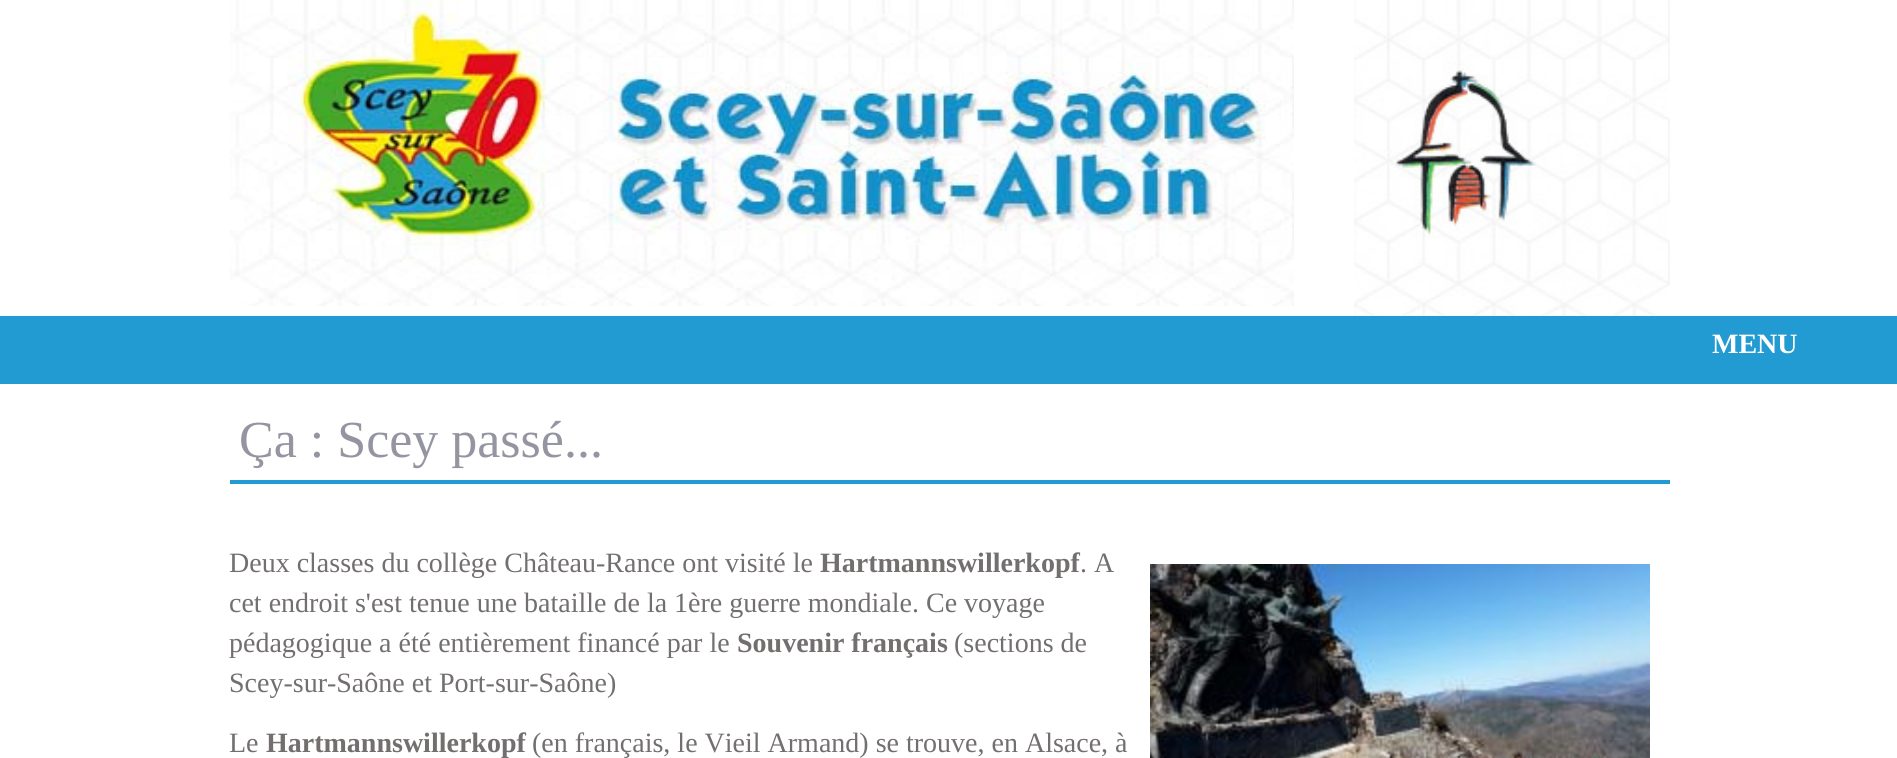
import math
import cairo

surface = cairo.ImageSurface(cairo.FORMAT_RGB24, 1897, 758)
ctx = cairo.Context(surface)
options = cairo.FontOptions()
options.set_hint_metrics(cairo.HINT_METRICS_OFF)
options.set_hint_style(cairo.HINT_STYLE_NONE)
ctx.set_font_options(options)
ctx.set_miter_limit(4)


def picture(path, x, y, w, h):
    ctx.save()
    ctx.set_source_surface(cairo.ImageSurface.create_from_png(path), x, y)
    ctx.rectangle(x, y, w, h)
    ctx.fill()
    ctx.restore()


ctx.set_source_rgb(1, 1, 1)
ctx.paint()
picture("img1.png", 230, 0, 1064, 306)
picture("img2.png", 1354, 0, 316, 316)
ctx.set_source_rgb(0.133, 0.608, 0.824)
ctx.rectangle(0, 316, 1897, 68)
ctx.fill()
ctx.select_font_face("Liberation Serif", cairo.FONT_SLANT_NORMAL, cairo.FONT_WEIGHT_BOLD)
ctx.set_font_size(28)
ctx.set_source_rgb(1, 1, 1)
ctx.move_to(1712, 353)
ctx.show_text("MENU")
ctx.set_source_rgb(0.133, 0.608, 0.824)
ctx.rectangle(230, 480, 1440, 4)
ctx.fill()
ctx.select_font_face("Liberation Serif")
ctx.set_font_size(52)
ctx.set_source_rgb(0.584, 0.584, 0.635)
ctx.move_to(239, 457)
ctx.show_text("Ça : Scey passé...")
ctx.set_font_size(28)
ctx.set_source_rgb(0.451, 0.435, 0.435)
ctx.move_to(229, 572)
ctx.show_text("Deux classes du collège Château-Rance ont visité le")
ctx.select_font_face("Liberation Serif", cairo.FONT_SLANT_NORMAL, cairo.FONT_WEIGHT_BOLD)
ctx.move_to(820, 572)
ctx.show_text("Hartmannswillerkopf")
ctx.select_font_face("Liberation Serif")
ctx.move_to(1080, 572)
ctx.show_text(". A")
picture("img3.png", 1150, 564, 500, 194)
ctx.move_to(229, 612)
ctx.show_text("cet endroit s'est tenue une bataille de la 1ère guerre mondiale. Ce voyage")
ctx.move_to(229, 652)
ctx.show_text("pédagogique a été entièrement financé par le")
ctx.select_font_face("Liberation Serif", cairo.FONT_SLANT_NORMAL, cairo.FONT_WEIGHT_BOLD)
ctx.move_to(737, 652)
ctx.show_text("Souvenir français")
ctx.select_font_face("Liberation Serif")
ctx.move_to(954, 652)
ctx.show_text("(sections de")
ctx.move_to(229, 692)
ctx.show_text("Scey-sur-Saône et Port-sur-Saône)")
ctx.move_to(229, 752)
ctx.show_text("Le")
ctx.select_font_face("Liberation Serif", cairo.FONT_SLANT_NORMAL, cairo.FONT_WEIGHT_BOLD)
ctx.move_to(266, 752)
ctx.show_text("Hartmannswillerkopf")
ctx.select_font_face("Liberation Serif")
ctx.move_to(532, 752)
ctx.show_text("(en français, le Vieil Armand) se trouve, en Alsace, à")
surface.write_to_png("page.png")
